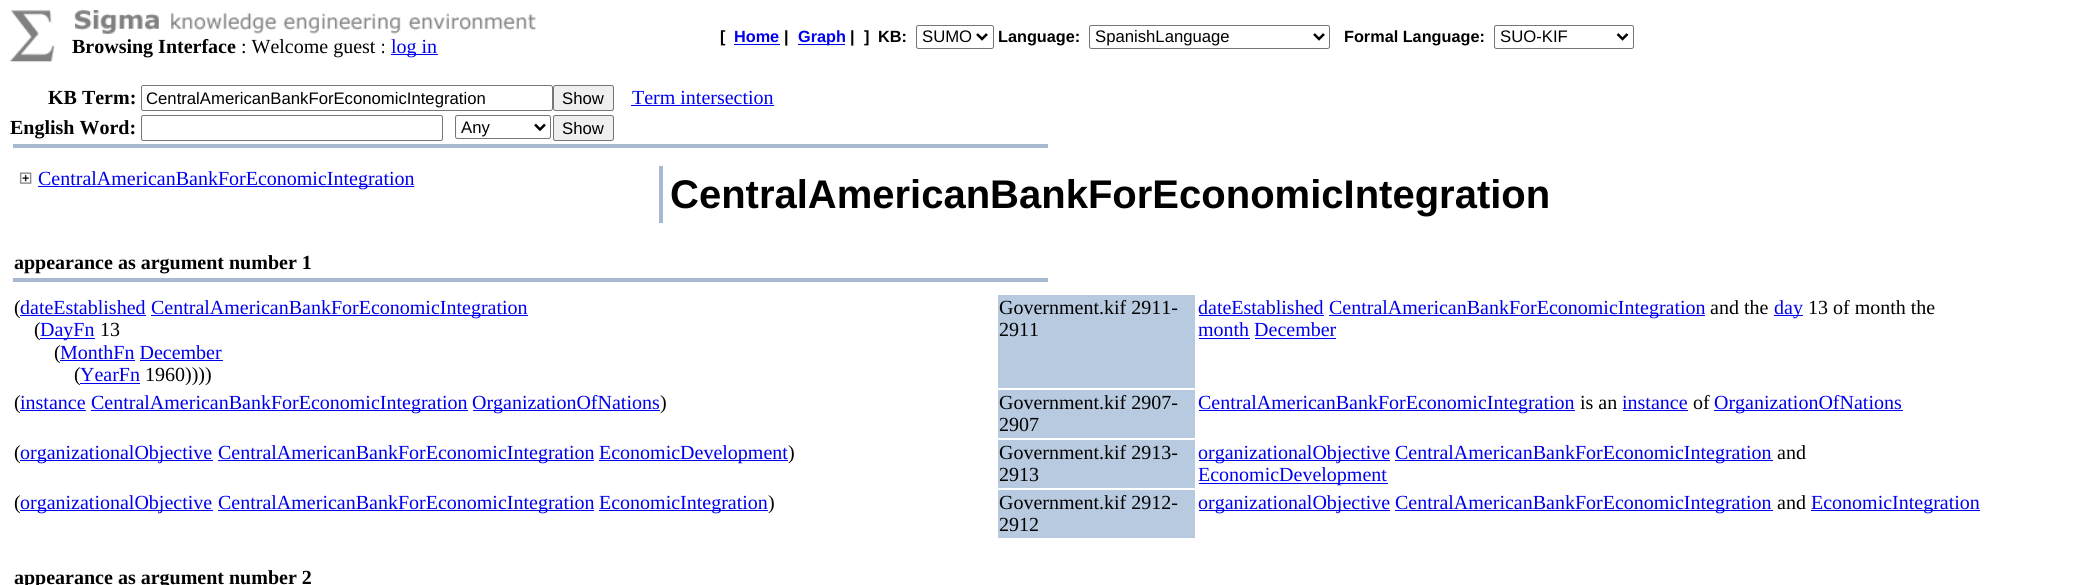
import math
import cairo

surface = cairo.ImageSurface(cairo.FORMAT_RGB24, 2100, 585)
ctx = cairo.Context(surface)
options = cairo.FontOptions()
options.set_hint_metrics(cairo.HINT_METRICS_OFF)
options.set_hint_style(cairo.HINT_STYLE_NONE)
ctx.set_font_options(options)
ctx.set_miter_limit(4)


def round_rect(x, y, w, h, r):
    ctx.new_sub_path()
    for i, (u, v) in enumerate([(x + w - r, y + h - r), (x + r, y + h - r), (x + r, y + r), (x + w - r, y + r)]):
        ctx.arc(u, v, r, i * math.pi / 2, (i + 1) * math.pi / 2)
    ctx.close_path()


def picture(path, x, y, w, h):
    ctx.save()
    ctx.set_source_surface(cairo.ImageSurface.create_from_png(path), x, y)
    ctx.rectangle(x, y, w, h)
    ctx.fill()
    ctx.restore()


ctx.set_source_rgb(1, 1, 1)
ctx.paint()
picture("img1.png", 10, 10, 45, 52)
picture("img2.png", 74, 10, 463, 24)
ctx.select_font_face("Liberation Serif", cairo.FONT_SLANT_NORMAL, cairo.FONT_WEIGHT_BOLD)
ctx.set_font_size(20)
ctx.set_source_rgb(0, 0, 0)
ctx.move_to(72, 53)
ctx.show_text("Browsing Interface")
ctx.select_font_face("Liberation Serif")
ctx.move_to(241, 53)
ctx.show_text(": Welcome guest :")
ctx.set_source_rgb(0, 0, 0.933)
ctx.rectangle(391, 54, 47, 1)
ctx.fill()
ctx.move_to(391, 53)
ctx.show_text("log in")
ctx.select_font_face("Liberation Sans", cairo.FONT_SLANT_NORMAL, cairo.FONT_WEIGHT_BOLD)
ctx.set_font_size(16.25)
ctx.set_source_rgb(0, 0, 0)
ctx.move_to(720, 42)
ctx.show_text("[")
ctx.set_source_rgb(0, 0, 0.933)
ctx.move_to(734, 42)
ctx.show_text("Home")
ctx.rectangle(734, 44, 46, 1)
ctx.fill()
ctx.set_source_rgb(0, 0, 0)
ctx.move_to(784, 42)
ctx.show_text("|")
ctx.set_source_rgb(0, 0, 0.933)
ctx.rectangle(798, 44, 47, 1)
ctx.fill()
ctx.move_to(798, 42)
ctx.show_text("Graph")
ctx.set_source_rgb(0, 0, 0)
ctx.move_to(850, 42)
ctx.show_text("|")
ctx.move_to(864, 42)
ctx.show_text("]")
ctx.move_to(878, 42)
ctx.show_text("KB:")
round_rect(916.5, 25.5, 77, 23, 2)
ctx.set_source_rgb(0.463, 0.463, 0.463)
ctx.set_line_width(1)
ctx.stroke()
ctx.new_path()
ctx.move_to(977, 34)
ctx.line_to(982, 39)
ctx.line_to(987, 34)
ctx.set_source_rgb(0, 0, 0)
ctx.set_line_width(2.5)
ctx.stroke()
ctx.select_font_face("Liberation Sans")
ctx.set_font_size(16.7)
ctx.move_to(922, 42)
ctx.show_text("SUMO")
ctx.select_font_face("Liberation Sans", cairo.FONT_SLANT_NORMAL, cairo.FONT_WEIGHT_BOLD)
ctx.set_font_size(16.25)
ctx.move_to(998, 42)
ctx.show_text("Language:")
round_rect(1089.5, 25.5, 240, 23, 2)
ctx.set_source_rgb(0.463, 0.463, 0.463)
ctx.set_line_width(1)
ctx.stroke()
ctx.new_path()
ctx.move_to(1314, 34)
ctx.line_to(1319, 39)
ctx.line_to(1324, 34)
ctx.set_source_rgb(0, 0, 0)
ctx.set_line_width(2.5)
ctx.stroke()
ctx.select_font_face("Liberation Sans")
ctx.set_font_size(16.7)
ctx.move_to(1095, 42)
ctx.show_text("SpanishLanguage")
ctx.select_font_face("Liberation Sans", cairo.FONT_SLANT_NORMAL, cairo.FONT_WEIGHT_BOLD)
ctx.set_font_size(16.25)
ctx.move_to(1344, 42)
ctx.show_text("Formal Language:")
round_rect(1494.5, 25.5, 139, 23, 2)
ctx.set_source_rgb(0.463, 0.463, 0.463)
ctx.set_line_width(1)
ctx.stroke()
ctx.new_path()
ctx.move_to(1617.5, 34)
ctx.line_to(1622.5, 39)
ctx.line_to(1627.5, 34)
ctx.set_source_rgb(0, 0, 0)
ctx.set_line_width(2.5)
ctx.stroke()
ctx.select_font_face("Liberation Sans")
ctx.set_font_size(16.7)
ctx.move_to(1500, 42)
ctx.show_text("SUO-KIF")
ctx.select_font_face("Liberation Serif", cairo.FONT_SLANT_NORMAL, cairo.FONT_WEIGHT_BOLD)
ctx.set_font_size(20)
ctx.move_to(48, 104)
ctx.show_text("KB Term:")
round_rect(141.5, 85.5, 411, 25, 2)
ctx.set_source_rgb(0.463, 0.463, 0.463)
ctx.set_line_width(1)
ctx.stroke()
ctx.select_font_face("Liberation Sans")
ctx.set_font_size(16.7)
ctx.set_source_rgb(0, 0, 0)
ctx.move_to(146, 104)
ctx.show_text("CentralAmericanBankForEconomicIntegration")
ctx.set_source_rgb(0.937, 0.937, 0.937)
round_rect(553.5, 85.5, 60, 25, 2)
ctx.fill_preserve()
ctx.set_source_rgb(0.463, 0.463, 0.463)
ctx.stroke()
ctx.set_source_rgb(0, 0, 0)
ctx.move_to(562, 104)
ctx.show_text("Show")
ctx.select_font_face("Liberation Serif")
ctx.set_font_size(20)
ctx.set_source_rgb(0, 0, 0.933)
ctx.move_to(632, 104)
ctx.show_text("Term intersection")
ctx.rectangle(631, 105, 143, 1)
ctx.fill()
ctx.select_font_face("Liberation Serif", cairo.FONT_SLANT_NORMAL, cairo.FONT_WEIGHT_BOLD)
ctx.set_source_rgb(0, 0, 0)
ctx.move_to(10, 134)
ctx.show_text("English Word:")
round_rect(141.5, 115.5, 301, 25, 2)
ctx.set_source_rgb(0.463, 0.463, 0.463)
ctx.stroke()
round_rect(455.5, 115.5, 95, 23, 2)
ctx.stroke()
ctx.new_path()
ctx.move_to(535, 124.5)
ctx.line_to(540, 129.5)
ctx.line_to(545, 124.5)
ctx.set_source_rgb(0, 0, 0)
ctx.set_line_width(2.5)
ctx.stroke()
ctx.select_font_face("Liberation Sans")
ctx.set_font_size(16.7)
ctx.move_to(461, 133)
ctx.show_text("Any")
ctx.set_source_rgb(0.937, 0.937, 0.937)
round_rect(553.5, 115.5, 60, 25, 2)
ctx.fill_preserve()
ctx.set_source_rgb(0.463, 0.463, 0.463)
ctx.set_line_width(1)
ctx.stroke()
ctx.set_source_rgb(0, 0, 0)
ctx.move_to(562, 134)
ctx.show_text("Show")
ctx.set_source_rgb(0.659, 0.729, 0.812)
ctx.rectangle(13, 144, 1035, 4)
ctx.fill()
picture("img3.png", 19, 172, 13, 12)
ctx.set_source_rgb(0, 0, 0.933)
ctx.rectangle(38, 186, 376, 1)
ctx.fill()
ctx.select_font_face("Liberation Serif")
ctx.set_font_size(20)
ctx.move_to(38, 185)
ctx.show_text("CentralAmericanBankForEconomicIntegration")
ctx.set_source_rgb(0.659, 0.729, 0.812)
ctx.rectangle(659, 166, 4, 57)
ctx.fill()
ctx.select_font_face("Liberation Sans", cairo.FONT_SLANT_NORMAL, cairo.FONT_WEIGHT_BOLD)
ctx.set_font_size(40)
ctx.set_source_rgb(0, 0, 0)
ctx.move_to(670, 208)
ctx.show_text("CentralAmericanBankForEconomicIntegration")
ctx.select_font_face("Liberation Serif", cairo.FONT_SLANT_NORMAL, cairo.FONT_WEIGHT_BOLD)
ctx.set_font_size(20)
ctx.move_to(14, 269)
ctx.show_text("appearance as argument number 1")
ctx.set_source_rgb(0.659, 0.729, 0.812)
ctx.rectangle(13, 278, 1035, 4)
ctx.fill()
ctx.select_font_face("Liberation Serif")
ctx.set_source_rgb(0, 0, 0)
ctx.move_to(14, 314)
ctx.show_text("(")
ctx.set_source_rgb(0, 0, 0.933)
ctx.move_to(20, 314)
ctx.show_text("dateEstablished")
ctx.rectangle(20, 315, 126, 1)
ctx.fill()
ctx.rectangle(151, 315, 377, 1)
ctx.fill()
ctx.move_to(151, 314)
ctx.show_text("CentralAmericanBankForEconomicIntegration")
ctx.set_source_rgb(0, 0, 0)
ctx.move_to(34, 336)
ctx.show_text("(")
ctx.set_source_rgb(0, 0, 0.933)
ctx.rectangle(40, 338, 55, 1)
ctx.fill()
ctx.move_to(40, 336)
ctx.show_text("DayFn")
ctx.set_source_rgb(0, 0, 0)
ctx.move_to(100, 336)
ctx.show_text("13")
ctx.move_to(54, 359)
ctx.show_text("(")
ctx.set_source_rgb(0, 0, 0.933)
ctx.move_to(60, 359)
ctx.show_text("MonthFn December")
ctx.rectangle(60, 360, 75, 1)
ctx.fill()
ctx.rectangle(140, 360, 83, 1)
ctx.fill()
ctx.set_source_rgb(0, 0, 0)
ctx.move_to(74, 381)
ctx.show_text("(")
ctx.set_source_rgb(0, 0, 0.933)
ctx.move_to(80, 381)
ctx.show_text("YearFn")
ctx.rectangle(80, 383, 60, 1)
ctx.fill()
ctx.set_source_rgb(0, 0, 0)
ctx.move_to(145, 381)
ctx.show_text("1960))))")
ctx.set_source_rgb(0.722, 0.792, 0.875)
ctx.rectangle(998, 295, 197, 93)
ctx.fill()
ctx.set_source_rgb(0, 0, 0)
ctx.move_to(999, 314)
ctx.show_text("Government.kif 2911-")
ctx.move_to(999, 336)
ctx.show_text("2911")
ctx.set_source_rgb(0, 0, 0.933)
ctx.move_to(1198, 314)
ctx.show_text("dateEstablished")
ctx.rectangle(1199, 315, 125, 1)
ctx.fill()
ctx.rectangle(1329, 315, 376, 1)
ctx.fill()
ctx.move_to(1329, 314)
ctx.show_text("CentralAmericanBankForEconomicIntegration")
ctx.set_source_rgb(0, 0, 0)
ctx.move_to(1710, 314)
ctx.show_text("and the")
ctx.set_source_rgb(0, 0, 0.933)
ctx.rectangle(1774, 315, 29, 1)
ctx.fill()
ctx.move_to(1774, 314)
ctx.show_text("day")
ctx.set_source_rgb(0, 0, 0)
ctx.move_to(1808, 314)
ctx.show_text("13 of month the")
ctx.set_source_rgb(0, 0, 0.933)
ctx.move_to(1198, 336)
ctx.show_text("month December")
ctx.rectangle(1199, 338, 51, 1)
ctx.fill()
ctx.rectangle(1255, 338, 81, 1)
ctx.fill()
ctx.set_source_rgb(0, 0, 0)
ctx.move_to(14, 409)
ctx.show_text("(")
ctx.set_source_rgb(0, 0, 0.933)
ctx.move_to(20, 409)
ctx.show_text("instance")
ctx.rectangle(20, 410, 66, 1)
ctx.fill()
ctx.rectangle(91, 410, 377, 1)
ctx.fill()
ctx.move_to(91, 409)
ctx.show_text("CentralAmericanBankForEconomicIntegration")
ctx.rectangle(473, 410, 187, 1)
ctx.fill()
ctx.move_to(472, 409)
ctx.show_text("OrganizationOfNations")
ctx.set_source_rgb(0, 0, 0)
ctx.move_to(660, 409)
ctx.show_text(")")
ctx.set_source_rgb(0.722, 0.792, 0.875)
ctx.rectangle(998, 390, 197, 48)
ctx.fill()
ctx.set_source_rgb(0, 0, 0)
ctx.move_to(999, 409)
ctx.show_text("Government.kif 2907-")
ctx.move_to(999, 431)
ctx.show_text("2907")
ctx.set_source_rgb(0, 0, 0.933)
ctx.rectangle(1199, 410, 376, 1)
ctx.fill()
ctx.move_to(1198, 409)
ctx.show_text("CentralAmericanBankForEconomicIntegration")
ctx.set_source_rgb(0, 0, 0)
ctx.move_to(1580, 409)
ctx.show_text("is an")
ctx.set_source_rgb(0, 0, 0.933)
ctx.move_to(1622, 409)
ctx.show_text("instance")
ctx.rectangle(1623, 410, 65, 1)
ctx.fill()
ctx.set_source_rgb(0, 0, 0)
ctx.move_to(1693, 409)
ctx.show_text("of")
ctx.set_source_rgb(0, 0, 0.933)
ctx.rectangle(1714, 410, 189, 1)
ctx.fill()
ctx.move_to(1714, 409)
ctx.show_text("OrganizationOfNations")
ctx.set_source_rgb(0, 0, 0)
ctx.move_to(14, 459)
ctx.show_text("(")
ctx.set_source_rgb(0, 0, 0.933)
ctx.rectangle(20, 460, 193, 1)
ctx.fill()
ctx.move_to(20, 459)
ctx.show_text("organizationalObjective")
ctx.rectangle(218, 460, 376, 1)
ctx.fill()
ctx.move_to(218, 459)
ctx.show_text("CentralAmericanBankForEconomicIntegration")
ctx.rectangle(599, 460, 189, 1)
ctx.fill()
ctx.move_to(599, 459)
ctx.show_text("EconomicDevelopment")
ctx.set_source_rgb(0, 0, 0)
ctx.move_to(788, 459)
ctx.show_text(")")
ctx.set_source_rgb(0.722, 0.792, 0.875)
ctx.rectangle(998, 440, 197, 48)
ctx.fill()
ctx.set_source_rgb(0, 0, 0)
ctx.move_to(999, 459)
ctx.show_text("Government.kif 2913-")
ctx.move_to(999, 481)
ctx.show_text("2913")
ctx.set_source_rgb(0, 0, 0.933)
ctx.rectangle(1199, 460, 191, 1)
ctx.fill()
ctx.move_to(1198, 459)
ctx.show_text("organizationalObjective")
ctx.rectangle(1395, 460, 378, 1)
ctx.fill()
ctx.move_to(1395, 459)
ctx.show_text("CentralAmericanBankForEconomicIntegration")
ctx.set_source_rgb(0, 0, 0)
ctx.move_to(1777, 459)
ctx.show_text("and")
ctx.set_source_rgb(0, 0, 0.933)
ctx.rectangle(1199, 483, 189, 1)
ctx.fill()
ctx.move_to(1198, 481)
ctx.show_text("EconomicDevelopment")
ctx.set_source_rgb(0, 0, 0)
ctx.move_to(14, 509)
ctx.show_text("(")
ctx.set_source_rgb(0, 0, 0.933)
ctx.rectangle(20, 510, 193, 1)
ctx.fill()
ctx.move_to(20, 509)
ctx.show_text("organizationalObjective")
ctx.rectangle(218, 510, 376, 1)
ctx.fill()
ctx.move_to(218, 509)
ctx.show_text("CentralAmericanBankForEconomicIntegration")
ctx.rectangle(599, 510, 169, 1)
ctx.fill()
ctx.move_to(599, 509)
ctx.show_text("EconomicIntegration")
ctx.set_source_rgb(0, 0, 0)
ctx.move_to(768, 509)
ctx.show_text(")")
ctx.set_source_rgb(0.722, 0.792, 0.875)
ctx.rectangle(998, 490, 197, 48)
ctx.fill()
ctx.set_source_rgb(0, 0, 0)
ctx.move_to(999, 509)
ctx.show_text("Government.kif 2912-")
ctx.move_to(999, 531)
ctx.show_text("2912")
ctx.set_source_rgb(0, 0, 0.933)
ctx.rectangle(1199, 510, 191, 1)
ctx.fill()
ctx.move_to(1198, 509)
ctx.show_text("organizationalObjective")
ctx.rectangle(1395, 510, 378, 1)
ctx.fill()
ctx.move_to(1395, 509)
ctx.show_text("CentralAmericanBankForEconomicIntegration")
ctx.set_source_rgb(0, 0, 0)
ctx.move_to(1777, 509)
ctx.show_text("and")
ctx.set_source_rgb(0, 0, 0.933)
ctx.rectangle(1811, 510, 169, 1)
ctx.fill()
ctx.move_to(1811, 509)
ctx.show_text("EconomicIntegration")
ctx.select_font_face("Liberation Serif", cairo.FONT_SLANT_NORMAL, cairo.FONT_WEIGHT_BOLD)
ctx.set_source_rgb(0, 0, 0)
ctx.move_to(14, 584)
ctx.show_text("appearance as argument number 2")
surface.write_to_png("page.png")
